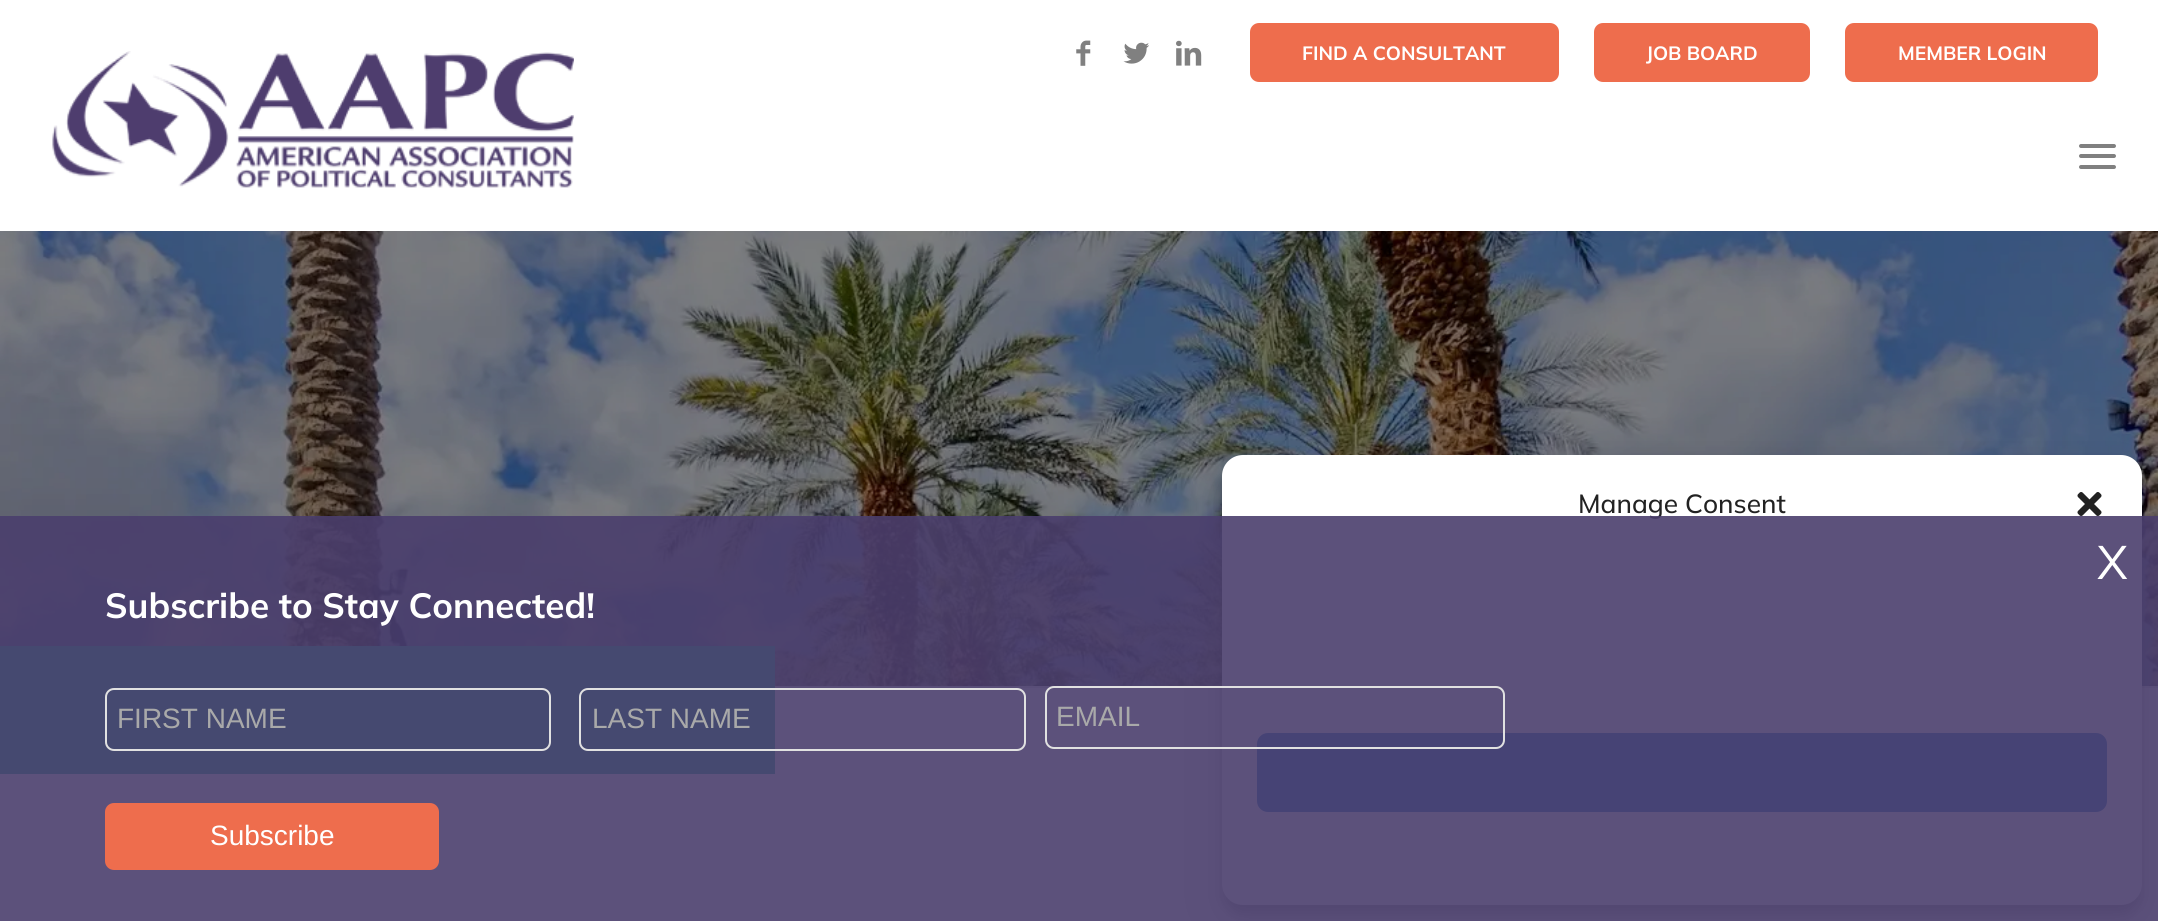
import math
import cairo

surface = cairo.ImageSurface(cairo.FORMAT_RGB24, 2158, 921)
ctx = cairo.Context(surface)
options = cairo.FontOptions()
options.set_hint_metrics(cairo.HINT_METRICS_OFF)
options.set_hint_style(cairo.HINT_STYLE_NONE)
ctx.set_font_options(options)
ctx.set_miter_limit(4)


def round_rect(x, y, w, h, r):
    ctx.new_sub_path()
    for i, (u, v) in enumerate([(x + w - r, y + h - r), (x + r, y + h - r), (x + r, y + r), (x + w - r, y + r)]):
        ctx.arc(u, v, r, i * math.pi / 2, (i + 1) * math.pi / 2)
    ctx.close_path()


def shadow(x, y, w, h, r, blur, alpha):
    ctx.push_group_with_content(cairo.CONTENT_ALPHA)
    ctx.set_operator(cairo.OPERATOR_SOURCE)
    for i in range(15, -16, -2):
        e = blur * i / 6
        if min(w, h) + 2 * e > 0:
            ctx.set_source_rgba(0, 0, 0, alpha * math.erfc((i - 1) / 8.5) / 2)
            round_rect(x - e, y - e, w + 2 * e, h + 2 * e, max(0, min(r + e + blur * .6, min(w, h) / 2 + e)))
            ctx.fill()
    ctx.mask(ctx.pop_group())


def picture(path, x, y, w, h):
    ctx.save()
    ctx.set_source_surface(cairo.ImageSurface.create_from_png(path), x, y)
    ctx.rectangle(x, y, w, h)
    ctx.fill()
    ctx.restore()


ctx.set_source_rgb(1, 1, 1)
ctx.paint()
picture("img1.png", 1076, 40, 15, 26)
picture("img2.png", 1123, 42, 26, 22)
picture("img3.png", 1176, 40, 26, 26)
ctx.set_source_rgb(0.933, 0.427, 0.302)
round_rect(1250, 23, 309, 59, 9)
ctx.fill()
ctx.select_font_face("Mulish", cairo.FONT_SLANT_NORMAL, cairo.FONT_WEIGHT_BOLD)
ctx.set_font_size(19.25)
ctx.set_source_rgb(1, 1, 1)
ctx.move_to(1302, 60)
ctx.show_text("FIND A CONSULTANT")
ctx.set_source_rgb(0.933, 0.427, 0.302)
round_rect(1594, 23, 216, 59, 9)
ctx.fill()
ctx.set_source_rgb(1, 1, 1)
ctx.move_to(1646, 60)
ctx.show_text("JOB BOARD")
ctx.set_source_rgb(0.933, 0.427, 0.302)
round_rect(1845, 23, 253, 59, 9)
ctx.fill()
ctx.set_source_rgb(1, 1, 1)
ctx.move_to(1898, 60)
ctx.show_text("MEMBER LOGIN")
picture("img4.png", 52, 51, 522, 137)
ctx.set_source_rgb(0.502, 0.502, 0.502)
round_rect(2079, 154, 37, 4, 2)
ctx.fill()
round_rect(2079, 144, 37, 4, 2)
ctx.fill()
round_rect(2079, 165, 37, 4, 2)
ctx.fill()
picture("img5.png", 0, 231, 2158, 455)
ctx.set_source_rgb(0.98, 0.98, 0.98)
ctx.rectangle(0, 688, 2158, 233)
ctx.fill()
ctx.set_source_rgb(0.075, 0.686, 0.576)
ctx.rectangle(0, 646, 775, 128)
ctx.fill()
ctx.set_source_rgb(0.882, 0.882, 0.882)
ctx.rectangle(775, 686, 1383, 2)
ctx.fill()
ctx.set_source_rgb(0, 0, 0)
shadow(1222, 466, 920, 449, 21, 5, 0.23)
shadow(1222, 473, 920, 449, 21, 17.5, 0.19)
ctx.set_source_rgb(1, 1, 1)
round_rect(1222, 455, 920, 450, 21)
ctx.fill()
ctx.select_font_face("Mulish Medium")
ctx.set_font_size(26.25)
ctx.set_source_rgb(0.133, 0.133, 0.133)
ctx.move_to(1578, 513)
ctx.show_text("Manage Consent")
picture("img6.png", 2077, 492, 25, 24)
ctx.set_source_rgb(0.118, 0.451, 0.745)
round_rect(1258, 734, 848, 77, 10)
ctx.fill_preserve()
ctx.stroke()
ctx.set_source_rgba(0.294, 0.247, 0.427, 0.9)
ctx.rectangle(0, 516, 2158, 405)
ctx.fill()
ctx.select_font_face("Mulish")
ctx.set_font_size(47)
ctx.set_source_rgb(1, 1, 1)
ctx.move_to(2097, 579)
ctx.show_text("X")
ctx.select_font_face("Mulish", cairo.FONT_SLANT_NORMAL, cairo.FONT_WEIGHT_BOLD)
ctx.set_font_size(35)
ctx.move_to(105, 618)
ctx.show_text("Subscribe to Stay Connected!")
round_rect(106, 689, 444, 61, 8)
ctx.set_source_rgb(0.882, 0.882, 0.882)
ctx.stroke()
ctx.select_font_face("Liberation Sans")
ctx.set_font_size(28)
ctx.set_source_rgb(0.663, 0.663, 0.663)
ctx.move_to(117, 728)
ctx.show_text("FIRST NAME")
round_rect(580, 689, 445, 61, 8)
ctx.set_source_rgb(0.882, 0.882, 0.882)
ctx.stroke()
ctx.set_source_rgb(0.663, 0.663, 0.663)
ctx.move_to(592, 728)
ctx.show_text("LAST NAME")
round_rect(1046, 687, 458, 61, 8)
ctx.set_source_rgb(0.882, 0.882, 0.882)
ctx.stroke()
ctx.set_source_rgb(0.663, 0.663, 0.663)
ctx.move_to(1056, 726)
ctx.show_text("EMAIL")
ctx.set_source_rgb(0.933, 0.427, 0.302)
round_rect(105, 803, 334, 67, 9)
ctx.fill()
ctx.set_source_rgb(1, 1, 1)
ctx.move_to(210, 845)
ctx.show_text("Subscribe")
surface.write_to_png("page.png")
